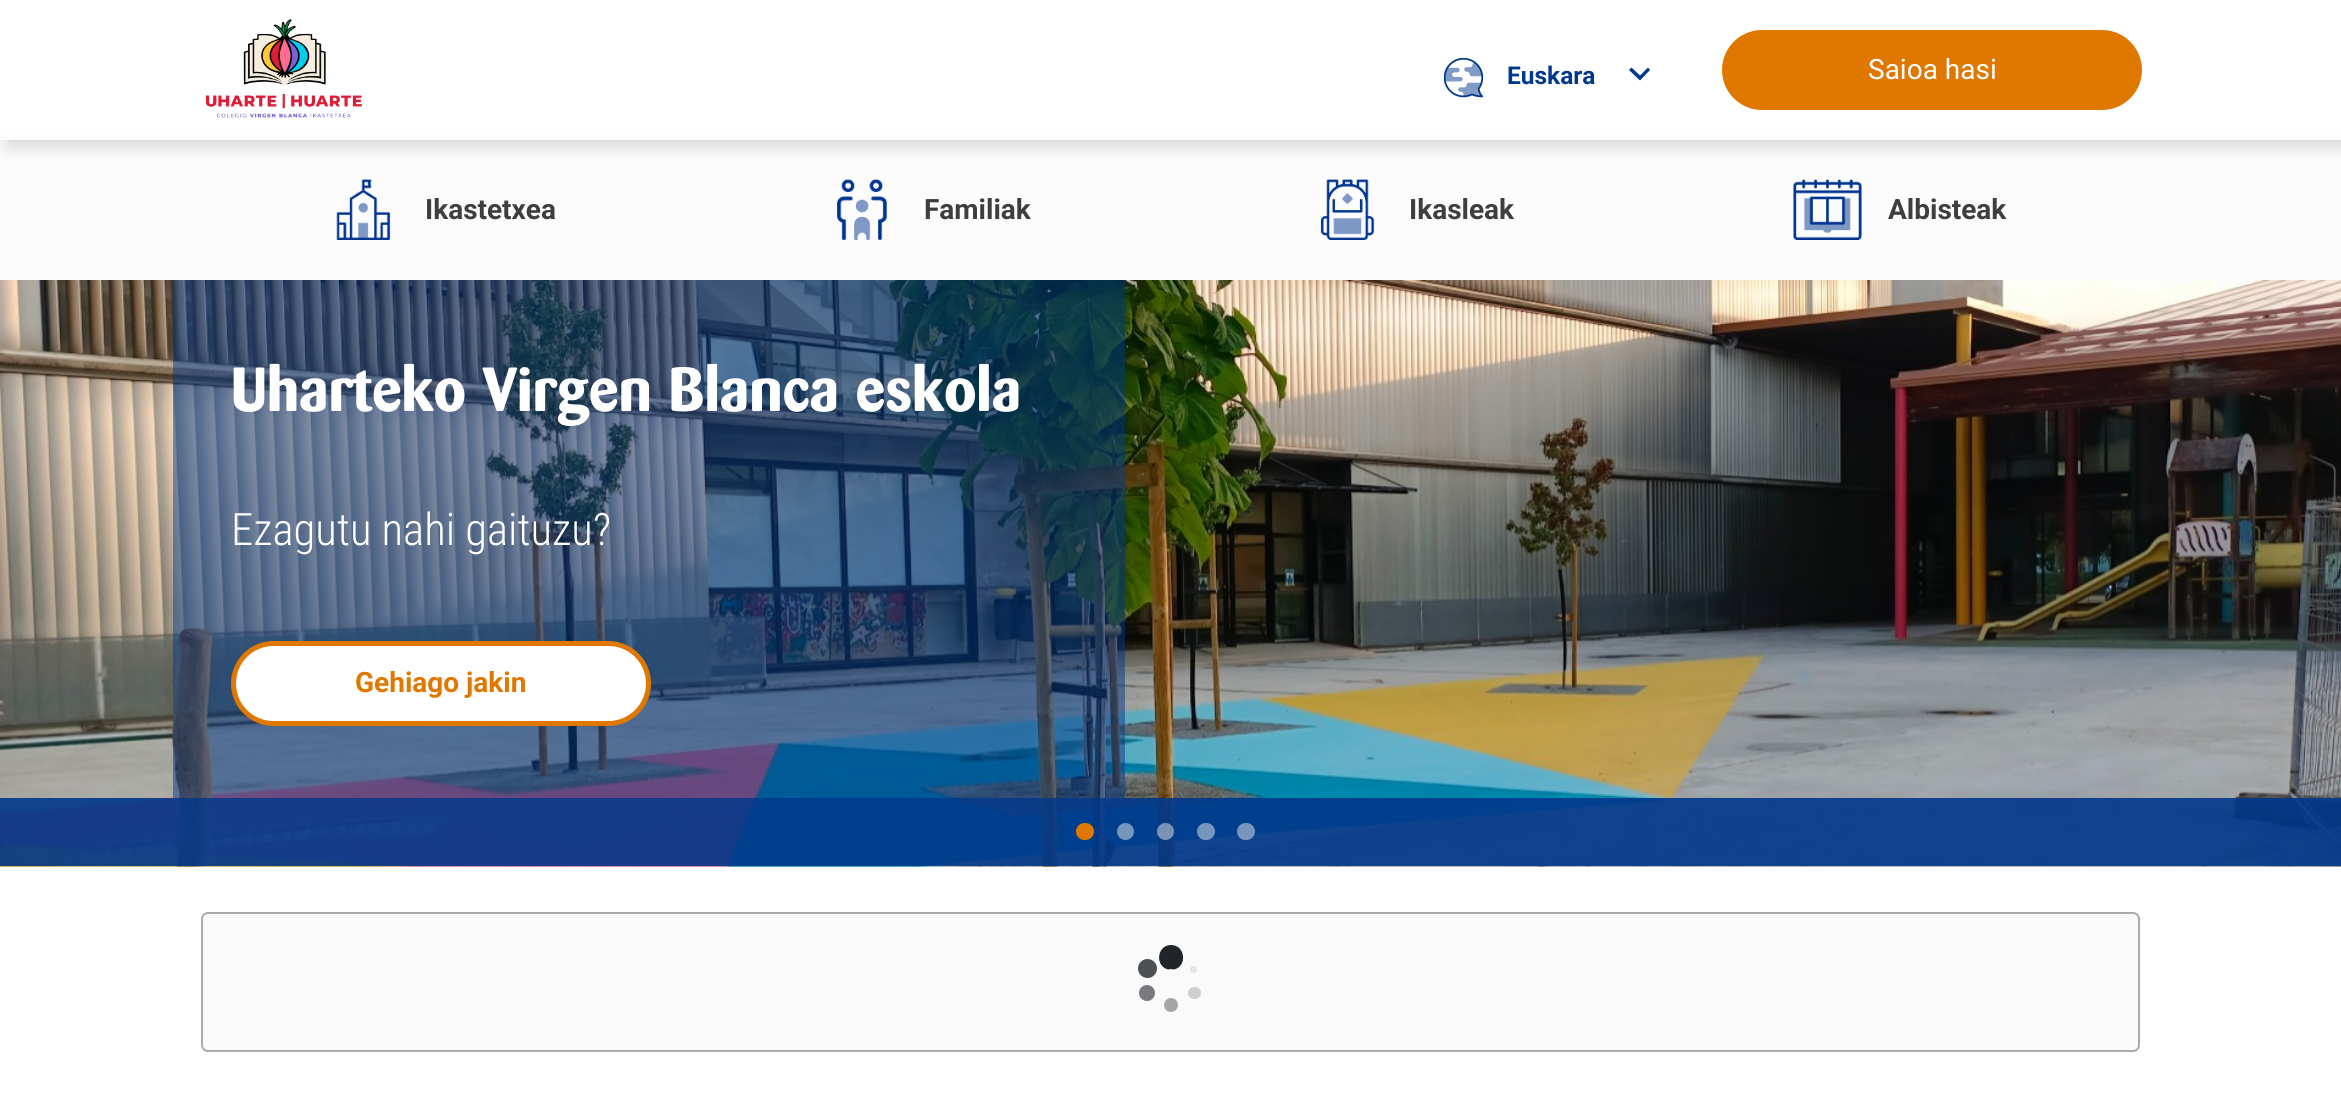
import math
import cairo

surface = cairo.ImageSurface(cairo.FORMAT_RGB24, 2341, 1114)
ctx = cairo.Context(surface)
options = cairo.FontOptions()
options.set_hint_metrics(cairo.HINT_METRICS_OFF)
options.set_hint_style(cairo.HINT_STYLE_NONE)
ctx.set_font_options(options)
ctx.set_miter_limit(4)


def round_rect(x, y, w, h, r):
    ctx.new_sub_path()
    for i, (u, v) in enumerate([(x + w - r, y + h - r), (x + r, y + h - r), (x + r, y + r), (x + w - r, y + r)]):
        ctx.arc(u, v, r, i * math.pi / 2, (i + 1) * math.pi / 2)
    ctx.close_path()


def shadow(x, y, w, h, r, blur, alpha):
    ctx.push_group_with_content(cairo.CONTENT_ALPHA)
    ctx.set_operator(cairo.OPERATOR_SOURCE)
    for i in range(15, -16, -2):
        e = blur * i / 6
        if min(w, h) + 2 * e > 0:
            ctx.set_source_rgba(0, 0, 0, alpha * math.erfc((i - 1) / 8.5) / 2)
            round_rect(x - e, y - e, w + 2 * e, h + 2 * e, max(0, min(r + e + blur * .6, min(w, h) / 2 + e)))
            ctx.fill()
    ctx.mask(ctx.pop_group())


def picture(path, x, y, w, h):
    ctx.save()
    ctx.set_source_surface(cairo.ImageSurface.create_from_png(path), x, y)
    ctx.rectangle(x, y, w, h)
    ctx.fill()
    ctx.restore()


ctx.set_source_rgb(1, 1, 1)
ctx.paint()
ctx.set_source_rgb(0.878, 0.878, 0.878)
shadow(0, 149, 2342, 140, 0, 9, 1)
ctx.set_source_rgb(0.988, 0.988, 0.988)
ctx.rectangle(0, 141, 2341, 139)
ctx.fill()
ctx.save()
ctx.rectangle(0, 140, 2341, 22)
ctx.clip()
ctx.set_source_rgb(0.627, 0.627, 0.627)
shadow(7, 7, 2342, 140, 0, 9, 0.4)
ctx.restore()
picture("img1.png", 205, 19, 157, 99)
picture("img2.png", 1444, 58, 40, 40)
ctx.select_font_face("Roboto", cairo.FONT_SLANT_NORMAL, cairo.FONT_WEIGHT_BOLD)
ctx.set_font_size(24.5)
ctx.set_source_rgb(0, 0.22, 0.553)
ctx.move_to(1507, 84)
ctx.show_text("Euskara")
ctx.new_path()
ctx.move_to(1631.5, 67.5)
ctx.line_to(1640, 75.5)
ctx.line_to(1648, 67.5)
ctx.line_to(1650, 70)
ctx.line_to(1640, 80.5)
ctx.line_to(1629, 70)
ctx.close_path()
ctx.fill()
ctx.set_source_rgb(0.878, 0.471, 0)
round_rect(1723, 31, 418, 78, 39)
ctx.fill_preserve()
ctx.stroke()
ctx.select_font_face("Roboto")
ctx.set_font_size(28)
ctx.set_source_rgb(1, 1, 1)
ctx.move_to(1868, 79)
ctx.show_text("Saioa hasi")
picture("img3.png", 336, 179, 55, 61)
ctx.select_font_face("Roboto", cairo.FONT_SLANT_NORMAL, cairo.FONT_WEIGHT_BOLD)
ctx.set_source_rgb(0.243, 0.243, 0.251)
ctx.move_to(425, 219)
ctx.show_text("Ikastetxea")
picture("img4.png", 837, 179, 50, 61)
ctx.move_to(924, 219)
ctx.show_text("Familiak")
picture("img5.png", 1320, 179, 55, 61)
ctx.move_to(1409, 219)
ctx.show_text("Ikasleak")
picture("img6.png", 1793, 179, 69, 61)
ctx.move_to(1888, 219)
ctx.show_text("Albisteak")
picture("img7.png", 0, 280, 2341, 587)
ctx.set_source_rgba(0, 0.22, 0.545, 0.5)
ctx.rectangle(173, 280, 952, 518)
ctx.fill()
ctx.select_font_face("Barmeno", cairo.FONT_SLANT_NORMAL, cairo.FONT_WEIGHT_BOLD)
ctx.set_font_size(61.6)
ctx.set_source_rgb(1, 1, 1)
ctx.move_to(231, 411)
ctx.show_text("Uharteko Virgen Blanca eskola")
ctx.select_font_face("Roboto Condensed Light")
ctx.set_font_size(44.75)
ctx.move_to(231, 545)
ctx.show_text("Ezagutu nahi gaituzu?")
round_rect(233.5, 643.5, 415, 80, 40)
ctx.fill_preserve()
ctx.set_source_rgb(0.878, 0.471, 0)
ctx.set_line_width(5)
ctx.stroke()
ctx.select_font_face("Roboto", cairo.FONT_SLANT_NORMAL, cairo.FONT_WEIGHT_BOLD)
ctx.set_font_size(28)
ctx.move_to(355, 692)
ctx.show_text("Gehiago jakin")
ctx.set_source_rgba(0, 0.22, 0.545, 0.9)
ctx.rectangle(0, 798, 2341, 68)
ctx.fill()
ctx.set_source_rgb(0.878, 0.471, 0)
round_rect(1076, 823, 18, 17, 8.5)
ctx.fill()
ctx.set_source_rgb(0.467, 0.588, 0.745)
ctx.arc(1125.5, 831.5, 8.5, 0, 2 * math.pi)
ctx.fill()
ctx.set_source_rgba(0.929, 0.929, 0.929, 0.5)
ctx.arc(1165.5, 831.5, 8.5, 0, 2 * math.pi)
ctx.fill()
round_rect(1197, 823, 18, 17, 8.5)
ctx.fill()
round_rect(1237, 823, 18, 17, 8.5)
ctx.fill()
ctx.set_source_rgb(0.98, 0.98, 0.98)
round_rect(202, 913, 1937, 138, 6)
ctx.fill_preserve()
ctx.set_source_rgb(0.667, 0.667, 0.667)
ctx.set_line_width(2)
ctx.stroke()
ctx.set_source_rgb(0.298, 0.314, 0.325)
ctx.arc(1147.5, 968.5, 9.5, 0, 2 * math.pi)
ctx.fill()
ctx.set_source_rgb(0.471, 0.478, 0.49)
ctx.arc(1147, 993, 8, 0, 2 * math.pi)
ctx.fill()
ctx.set_source_rgb(0.639, 0.647, 0.651)
ctx.arc(1171, 1005, 7, 0, 2 * math.pi)
ctx.fill()
ctx.set_source_rgb(0.812, 0.812, 0.816)
round_rect(1188, 987, 13, 12, 6)
ctx.fill()
ctx.set_source_rgb(0.894, 0.898, 0.898)
ctx.arc(1193.5, 969.5, 3.5, 0, 2 * math.pi)
ctx.fill()
ctx.set_source_rgb(0.129, 0.145, 0.161)
ctx.new_path()
ctx.move_to(1171, 945)
ctx.curve_to(1157, 945, 1154.5, 966, 1168, 969.5)
ctx.curve_to(1170, 969, 1172, 969, 1174, 969.5)
ctx.curve_to(1187.5, 966.5, 1185.5, 945, 1171, 945)
ctx.close_path()
ctx.fill()
surface.write_to_png("page.png")
